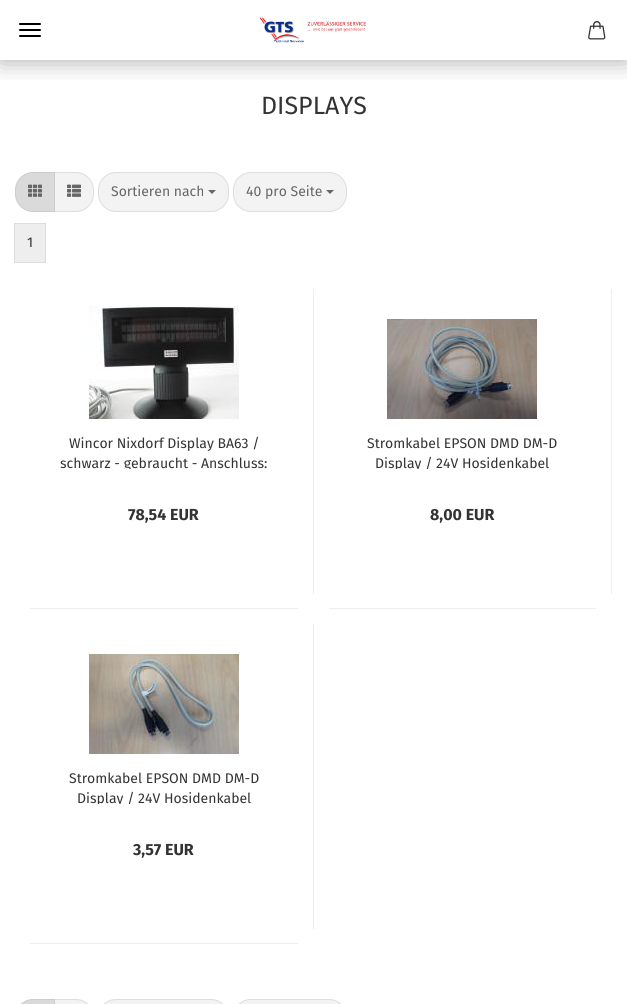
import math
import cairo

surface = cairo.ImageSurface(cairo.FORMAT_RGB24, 627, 1004)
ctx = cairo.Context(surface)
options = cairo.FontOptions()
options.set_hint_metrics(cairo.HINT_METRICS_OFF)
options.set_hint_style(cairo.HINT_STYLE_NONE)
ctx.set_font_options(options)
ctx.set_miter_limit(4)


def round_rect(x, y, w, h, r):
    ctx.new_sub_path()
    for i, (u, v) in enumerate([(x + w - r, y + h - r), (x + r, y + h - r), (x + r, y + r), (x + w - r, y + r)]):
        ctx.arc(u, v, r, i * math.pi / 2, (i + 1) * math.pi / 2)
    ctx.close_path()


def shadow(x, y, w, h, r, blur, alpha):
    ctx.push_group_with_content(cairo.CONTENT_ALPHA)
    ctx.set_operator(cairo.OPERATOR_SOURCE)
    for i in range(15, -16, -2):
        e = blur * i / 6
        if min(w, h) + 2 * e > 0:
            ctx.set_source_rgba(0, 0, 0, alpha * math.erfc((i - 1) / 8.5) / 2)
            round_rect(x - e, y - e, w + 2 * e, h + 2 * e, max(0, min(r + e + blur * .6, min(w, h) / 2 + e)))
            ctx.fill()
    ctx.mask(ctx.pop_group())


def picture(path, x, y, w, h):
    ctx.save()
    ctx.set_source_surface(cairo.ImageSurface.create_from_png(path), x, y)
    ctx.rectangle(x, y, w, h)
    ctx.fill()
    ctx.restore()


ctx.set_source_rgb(1, 1, 1)
ctx.paint()
ctx.save()
ctx.rectangle(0, 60, 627, 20)
ctx.clip()
ctx.set_source_rgb(0, 0, 0)
shadow(0, 0, 627, 60, 0, 12.5, 0.35)
ctx.restore()
picture("img1.png", 259, 17, 108, 26)
picture("img2.png", 588, 21, 18, 19)
ctx.set_source_rgb(0, 0, 0)
round_rect(19, 29, 22, 2, 1)
ctx.fill()
round_rect(19, 23, 22, 2, 1)
ctx.fill()
round_rect(19, 35, 22, 2, 1)
ctx.fill()
ctx.select_font_face("Fira Sans")
ctx.set_font_size(25)
ctx.set_source_rgb(0.2, 0.2, 0.2)
ctx.move_to(261, 114)
ctx.show_text("DISPLAYS")
ctx.set_source_rgb(0.953, 0.953, 0.953)
ctx.new_path()
ctx.move_to(54.5, 172.5)
ctx.line_to(76, 172.5)
ctx.curve_to(85.5, 172.5, 93.5, 180.5, 93.5, 190)
ctx.line_to(93.5, 194)
ctx.curve_to(93.5, 203.5, 85.5, 211.5, 76, 211.5)
ctx.line_to(54.5, 211.5)
ctx.close_path()
ctx.fill_preserve()
ctx.set_source_rgb(0.867, 0.867, 0.867)
ctx.set_line_width(1)
ctx.stroke()
ctx.set_source_rgb(0.855, 0.855, 0.855)
ctx.new_path()
ctx.move_to(33, 172.5)
ctx.line_to(54.5, 172.5)
ctx.line_to(54.5, 211.5)
ctx.line_to(33, 211.5)
ctx.curve_to(23.5, 211.5, 15.5, 203.5, 15.5, 194)
ctx.line_to(15.5, 190)
ctx.curve_to(15.5, 180.5, 23.5, 172.5, 33, 172.5)
ctx.close_path()
ctx.fill_preserve()
ctx.set_source_rgb(0.8, 0.8, 0.8)
ctx.stroke()
picture("img3.png", 28, 184, 14, 13)
picture("img4.png", 67, 184, 14, 13)
ctx.set_source_rgb(0.953, 0.953, 0.953)
round_rect(98.5, 172.5, 130, 39, 17.5)
ctx.fill_preserve()
ctx.set_source_rgb(0.867, 0.867, 0.867)
ctx.stroke()
ctx.set_font_size(14)
ctx.set_source_rgb(0.4, 0.4, 0.4)
ctx.move_to(111, 196)
ctx.show_text("Sortieren nach")
ctx.new_path()
ctx.move_to(208, 190)
ctx.line_to(216, 190)
ctx.line_to(212, 194)
ctx.close_path()
ctx.fill()
ctx.set_source_rgb(0.953, 0.953, 0.953)
round_rect(233.5, 172.5, 113, 39, 17.5)
ctx.fill_preserve()
ctx.set_source_rgb(0.867, 0.867, 0.867)
ctx.stroke()
ctx.set_source_rgb(0.4, 0.4, 0.4)
ctx.move_to(246, 196)
ctx.show_text("40 pro Seite")
ctx.new_path()
ctx.move_to(326, 190)
ctx.line_to(334, 190)
ctx.line_to(330, 194)
ctx.close_path()
ctx.fill()
ctx.set_source_rgb(0.933, 0.933, 0.933)
ctx.rectangle(14.5, 223.5, 31, 39)
ctx.fill_preserve()
ctx.set_source_rgb(0.867, 0.867, 0.867)
ctx.stroke()
ctx.set_source_rgb(0.2, 0.2, 0.2)
ctx.move_to(27, 247)
ctx.show_text("1")
ctx.set_source_rgb(0.933, 0.933, 0.933)
ctx.rectangle(313, 289, 1, 305)
ctx.fill()
ctx.rectangle(30, 608, 268, 1)
ctx.fill()
picture("img5.png", 89, 306, 150, 113)
ctx.set_source_rgb(0.2, 0.2, 0.2)
ctx.move_to(69, 448)
ctx.show_text("Wincor Nixdorf Display BA63 /")
ctx.save()
ctx.rectangle(45, 434, 238, 35)
ctx.clip()
ctx.move_to(60, 468)
ctx.show_text("schwarz - gebraucht - Anschluss:")
ctx.restore()
ctx.select_font_face("Fira Sans", cairo.FONT_SLANT_NORMAL, cairo.FONT_WEIGHT_BOLD)
ctx.set_font_size(16)
ctx.move_to(128, 520)
ctx.show_text("78,54 EUR")
ctx.set_source_rgb(0.933, 0.933, 0.933)
ctx.rectangle(611, 289, 1, 305)
ctx.fill()
ctx.rectangle(329, 608, 267, 1)
ctx.fill()
picture("img6.png", 387, 319, 150, 100)
ctx.select_font_face("Fira Sans")
ctx.set_font_size(14)
ctx.set_source_rgb(0.2, 0.2, 0.2)
ctx.move_to(367, 448)
ctx.show_text("Stromkabel EPSON DMD DM-D")
ctx.save()
ctx.rectangle(344, 434, 237, 35)
ctx.clip()
ctx.move_to(375, 468)
ctx.show_text("Display / 24V Hosidenkabel")
ctx.restore()
ctx.select_font_face("Fira Sans", cairo.FONT_SLANT_NORMAL, cairo.FONT_WEIGHT_BOLD)
ctx.set_font_size(16)
ctx.move_to(430, 520)
ctx.show_text("8,00 EUR")
ctx.set_source_rgb(0.933, 0.933, 0.933)
ctx.rectangle(313, 624, 1, 305)
ctx.fill()
ctx.rectangle(30, 943, 268, 1)
ctx.fill()
picture("img7.png", 89, 654, 150, 100)
ctx.select_font_face("Fira Sans")
ctx.set_font_size(14)
ctx.set_source_rgb(0.2, 0.2, 0.2)
ctx.move_to(69, 783)
ctx.show_text("Stromkabel EPSON DMD DM-D")
ctx.save()
ctx.rectangle(45, 769, 238, 35)
ctx.clip()
ctx.move_to(77, 803)
ctx.show_text("Display / 24V Hosidenkabel")
ctx.restore()
ctx.select_font_face("Fira Sans", cairo.FONT_SLANT_NORMAL, cairo.FONT_WEIGHT_BOLD)
ctx.set_font_size(16)
ctx.move_to(133, 855)
ctx.show_text("3,57 EUR")
ctx.set_source_rgb(0.953, 0.953, 0.953)
ctx.new_path()
ctx.move_to(54.5, 999.5)
ctx.line_to(76, 999.5)
ctx.curve_to(85.5, 999.5, 93.5, 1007.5, 93.5, 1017)
ctx.line_to(93.5, 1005)
ctx.curve_to(93.5, 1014.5, 85.5, 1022.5, 76, 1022.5)
ctx.line_to(54.5, 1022.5)
ctx.close_path()
ctx.fill_preserve()
ctx.set_source_rgb(0.867, 0.867, 0.867)
ctx.stroke()
ctx.set_source_rgb(0.855, 0.855, 0.855)
ctx.new_path()
ctx.move_to(33, 999.5)
ctx.line_to(54.5, 999.5)
ctx.line_to(54.5, 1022.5)
ctx.line_to(33, 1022.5)
ctx.curve_to(23.5, 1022.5, 15.5, 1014.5, 15.5, 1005)
ctx.line_to(15.5, 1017)
ctx.curve_to(15.5, 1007.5, 23.5, 999.5, 33, 999.5)
ctx.close_path()
ctx.fill_preserve()
ctx.set_source_rgb(0.8, 0.8, 0.8)
ctx.stroke()
ctx.set_source_rgb(0.953, 0.953, 0.953)
round_rect(98.5, 999.5, 130, 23, 17.5)
ctx.fill_preserve()
ctx.set_source_rgb(0.867, 0.867, 0.867)
ctx.stroke()
ctx.set_source_rgb(0.953, 0.953, 0.953)
round_rect(233.5, 999.5, 113, 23, 17.5)
ctx.fill_preserve()
ctx.set_source_rgb(0.867, 0.867, 0.867)
ctx.stroke()
surface.write_to_png("page.png")
